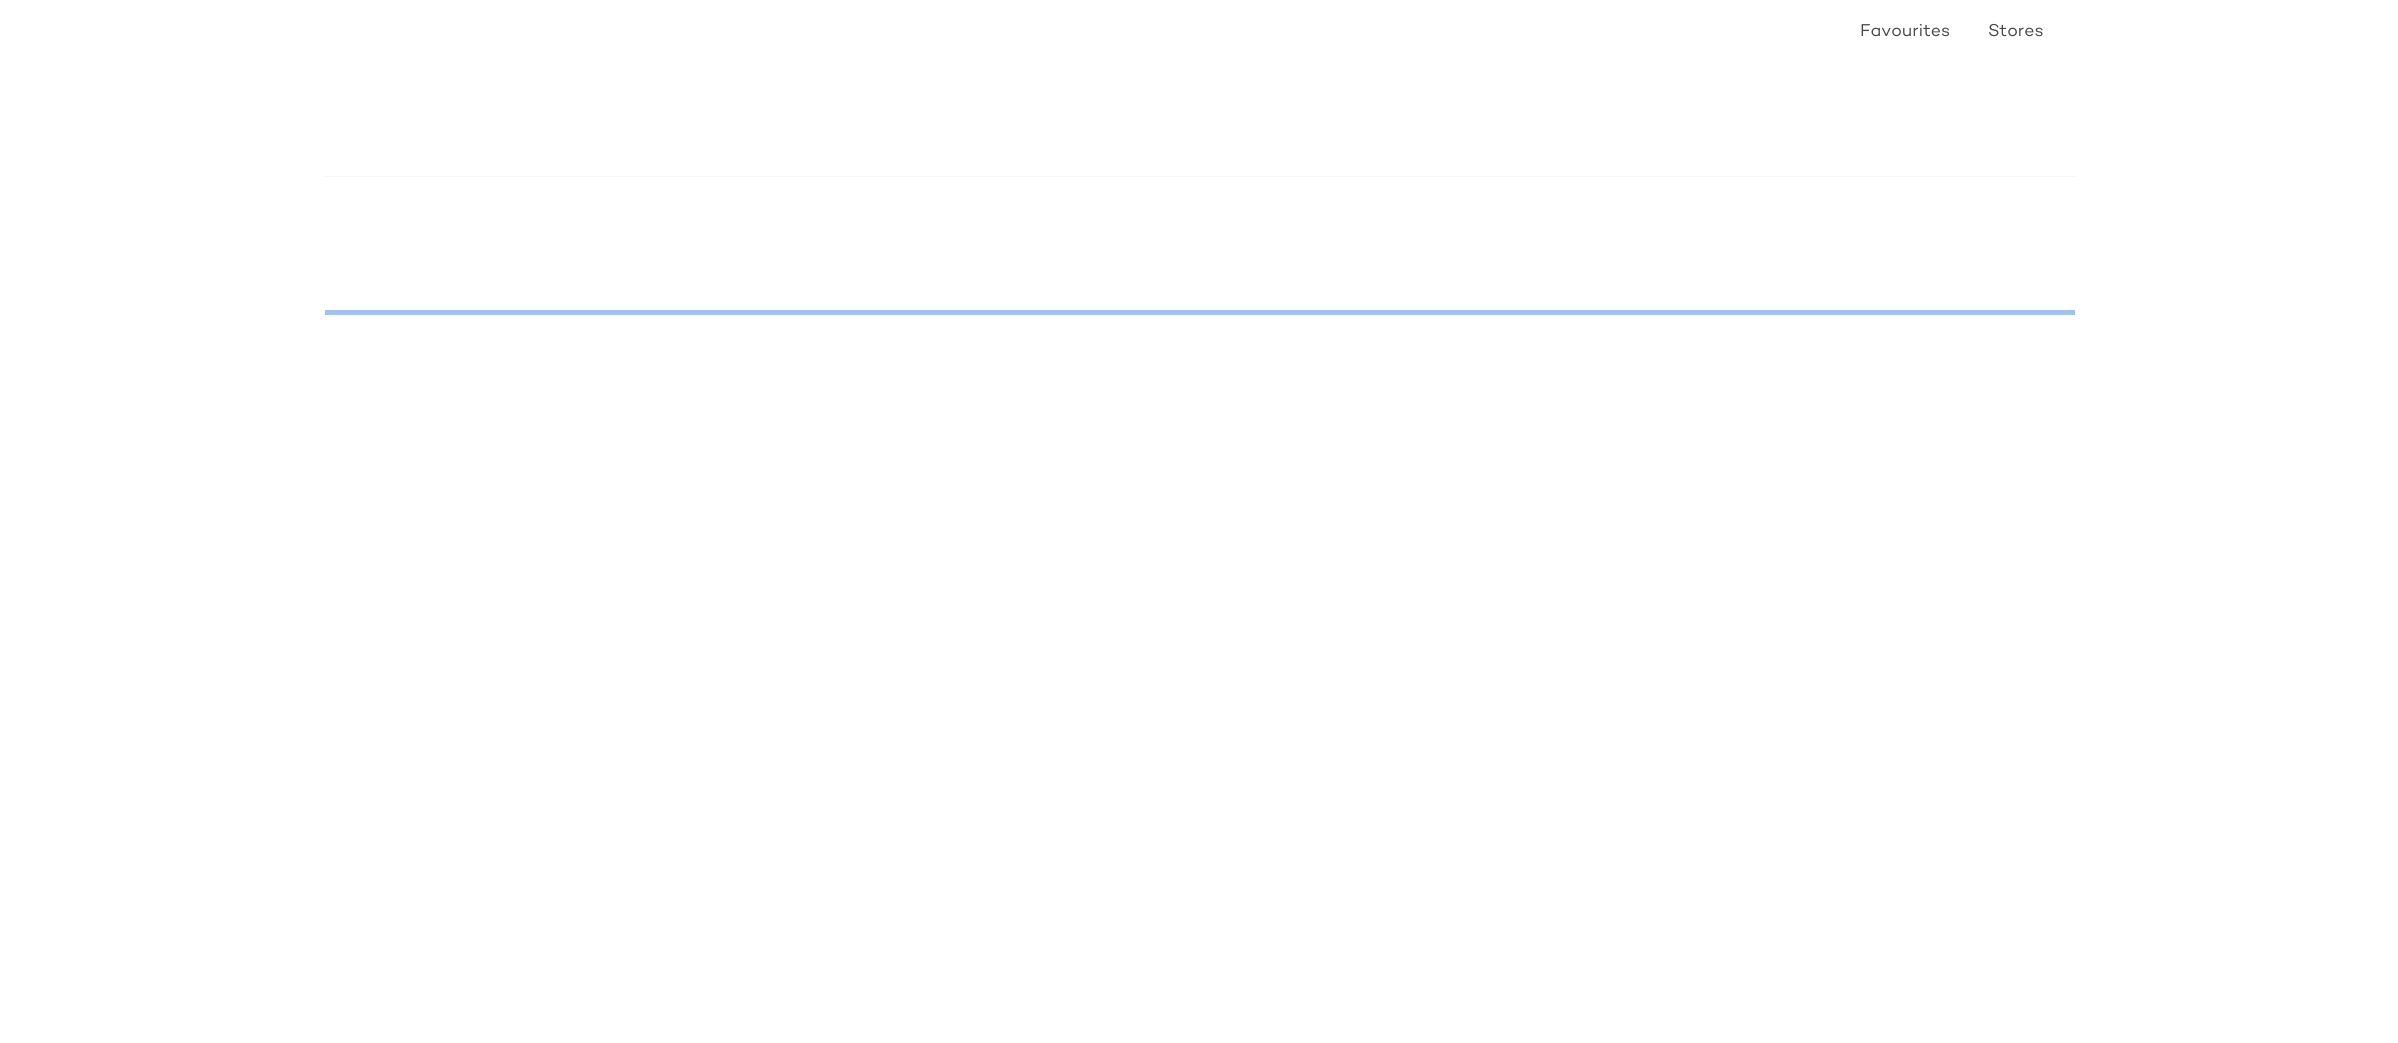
import math
import cairo

surface = cairo.ImageSurface(cairo.FORMAT_RGB24, 2398, 1043)
ctx = cairo.Context(surface)
options = cairo.FontOptions()
options.set_hint_metrics(cairo.HINT_METRICS_OFF)
options.set_hint_style(cairo.HINT_STYLE_NONE)
ctx.set_font_options(options)
ctx.set_miter_limit(4)


ctx.set_source_rgb(1, 1, 1)
ctx.paint()
ctx.select_font_face("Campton")
ctx.set_font_size(17.5)
ctx.set_source_rgb(0.282, 0.282, 0.286)
ctx.move_to(1860, 36)
ctx.show_text("Favourites")
ctx.move_to(1988, 36)
ctx.show_text("Stores")
ctx.set_source_rgb(0.953, 0.953, 0.969)
ctx.rectangle(325, 176, 1750, 1)
ctx.fill()
ctx.set_source_rgb(0.631, 0.761, 0.929)
ctx.rectangle(325, 310, 1750, 5)
ctx.fill()
surface.write_to_png("page.png")
